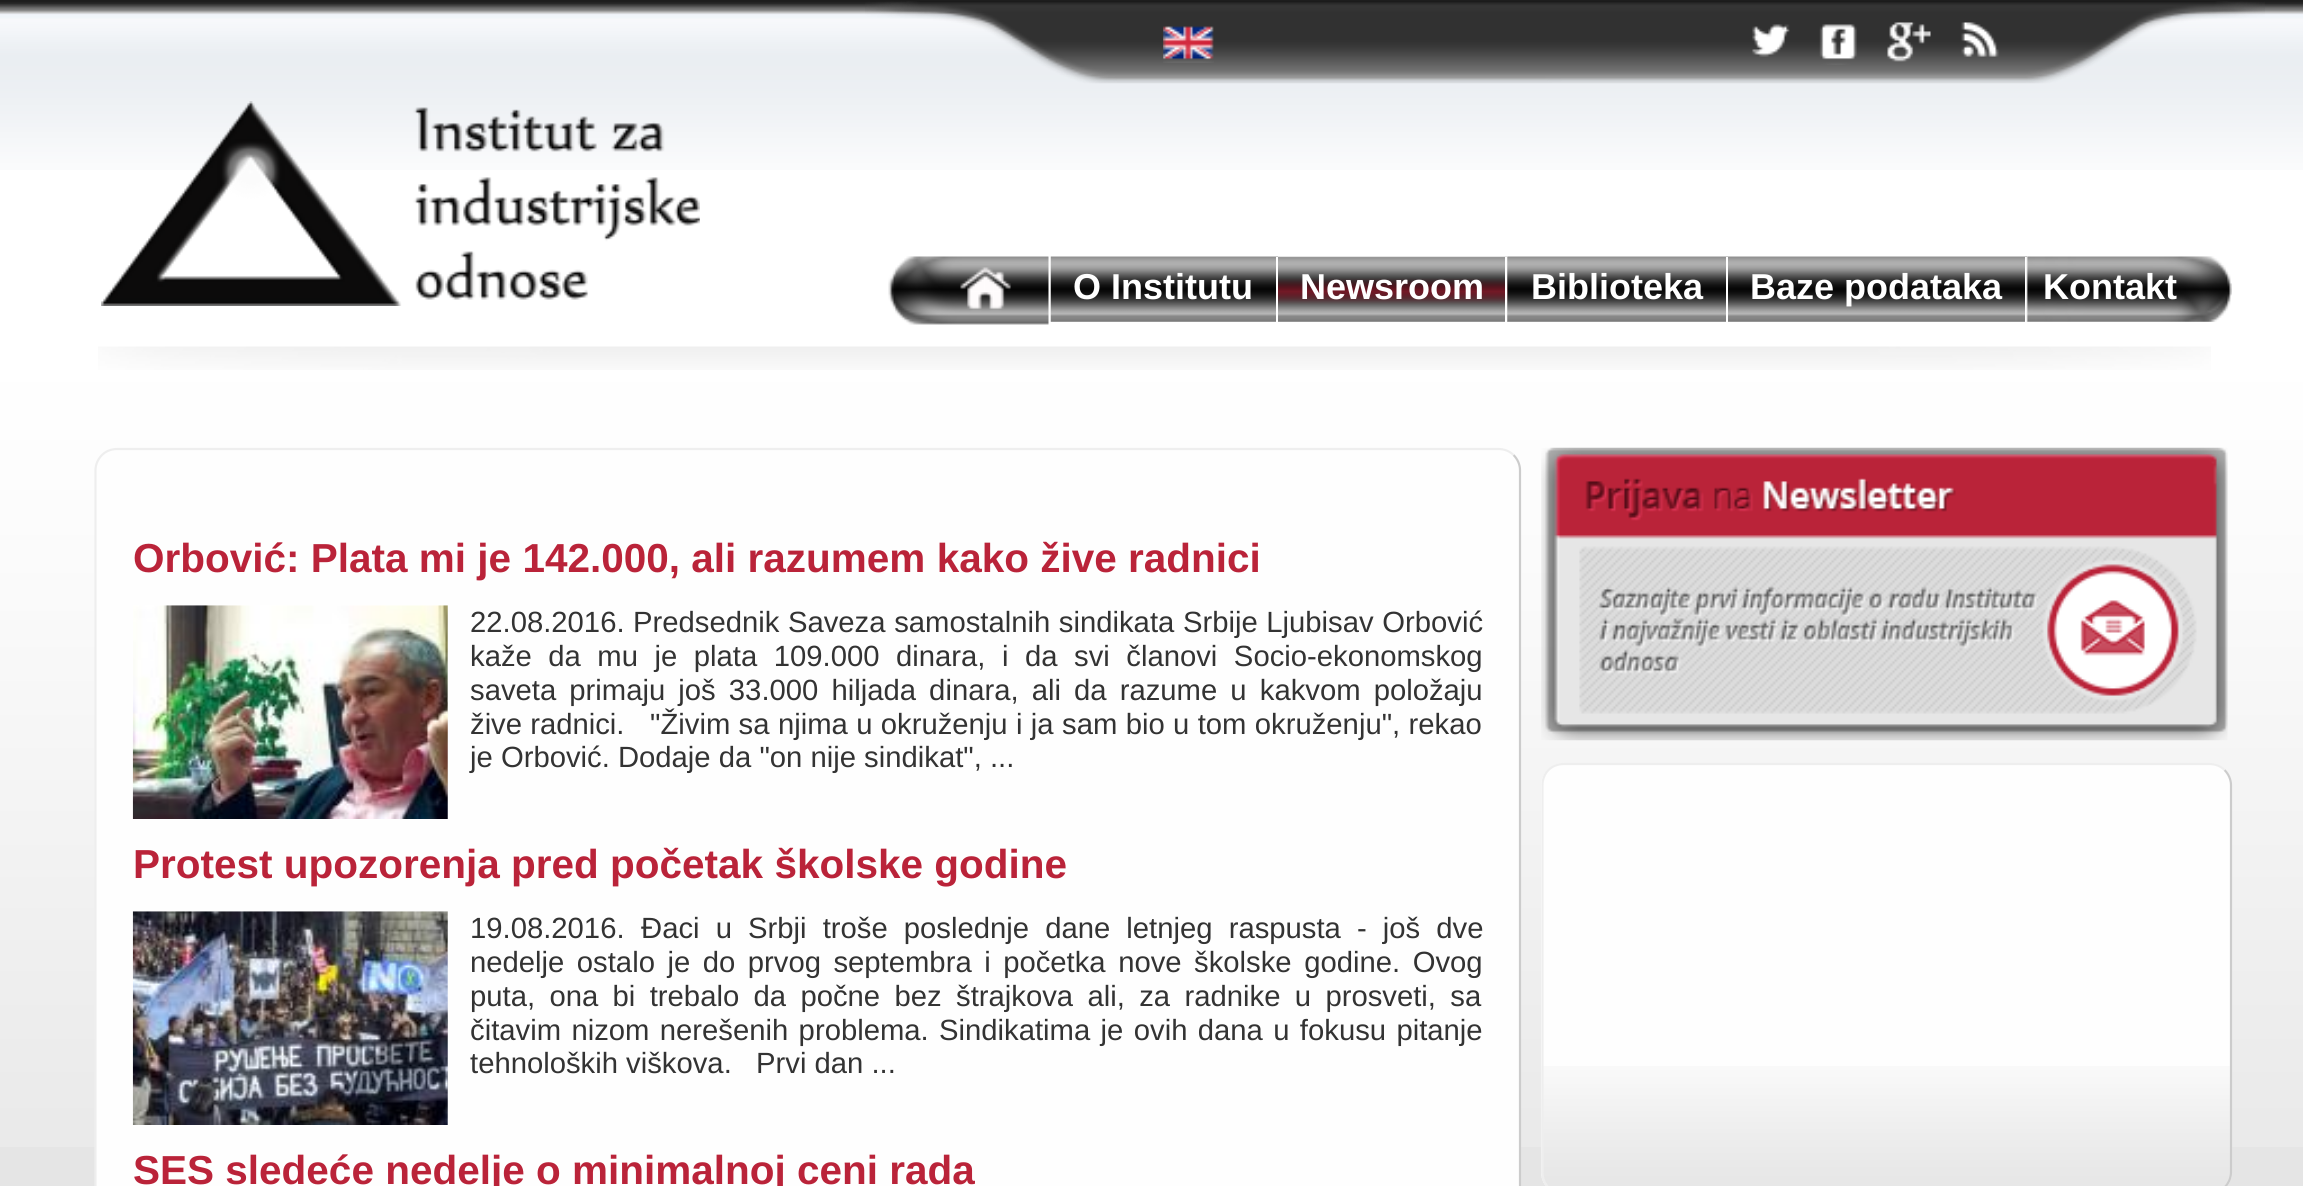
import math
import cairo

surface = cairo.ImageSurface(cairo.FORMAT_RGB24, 2303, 1186)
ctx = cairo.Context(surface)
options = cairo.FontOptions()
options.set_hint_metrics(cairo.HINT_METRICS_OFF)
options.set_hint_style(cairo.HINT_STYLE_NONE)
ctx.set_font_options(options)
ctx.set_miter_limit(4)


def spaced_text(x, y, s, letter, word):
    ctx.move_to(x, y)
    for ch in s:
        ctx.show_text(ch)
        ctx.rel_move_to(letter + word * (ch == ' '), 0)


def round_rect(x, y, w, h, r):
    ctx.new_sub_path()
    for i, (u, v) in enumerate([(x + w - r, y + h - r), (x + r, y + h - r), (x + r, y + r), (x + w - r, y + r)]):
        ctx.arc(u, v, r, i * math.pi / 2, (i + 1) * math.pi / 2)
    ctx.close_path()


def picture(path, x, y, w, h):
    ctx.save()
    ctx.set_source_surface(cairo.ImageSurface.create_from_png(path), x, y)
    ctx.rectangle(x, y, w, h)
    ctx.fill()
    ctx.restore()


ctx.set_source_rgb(1, 1, 1)
ctx.paint()
picture("img1.png", 0, 0, 2303, 170)
picture("img2.png", 865, 1, 1400, 83)
picture("img3.png", 1163, 26, 51, 37)
picture("img4.png", 1752, 24, 38, 33)
picture("img5.png", 1819, 24, 38, 41)
picture("img6.png", 1887, 22, 44, 40)
picture("img7.png", 1961, 22, 38, 35)
picture("img8.png", 101, 101, 599, 205)
picture("img9.png", 888, 256, 162, 69)
ctx.set_source_rgb(1, 1, 1)
ctx.rectangle(1049, 257, 1, 69)
ctx.fill()
picture("img10.png", 1050, 256, 228, 66)
ctx.rectangle(1276, 257, 2, 65)
ctx.fill()
ctx.select_font_face("Liberation Sans", cairo.FONT_SLANT_NORMAL, cairo.FONT_WEIGHT_BOLD)
ctx.set_font_size(36)
ctx.move_to(1073, 299)
ctx.show_text("O Institutu")
picture("img11.png", 1278, 256, 230, 66)
ctx.rectangle(1505, 257, 2, 65)
ctx.fill()
ctx.move_to(1300, 299)
ctx.show_text("Newsroom")
picture("img12.png", 1507, 256, 221, 66)
ctx.rectangle(1726, 257, 2, 65)
ctx.fill()
ctx.move_to(1531, 299)
ctx.show_text("Biblioteka")
picture("img13.png", 1728, 256, 300, 66)
ctx.rectangle(2025, 257, 2, 65)
ctx.fill()
ctx.move_to(1750, 299)
ctx.show_text("Baze podataka")
picture("img14.png", 2026, 256, 206, 66)
ctx.move_to(2043, 299)
ctx.show_text("Kontakt")
picture("img16.png", 0, 347, 2303, 800)
picture("img15.png", 98, 346, 2113, 24)
ctx.set_source_rgb(0.898, 0.898, 0.898)
ctx.rectangle(0, 1147, 2303, 39)
ctx.fill()
ctx.set_source_rgb(0.996, 0.996, 0.996)
round_rect(95, 448, 1426, 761, 23)
ctx.fill()
ctx.new_path()
ctx.move_to(1513.5, 455)
ctx.curve_to(1517.5, 459, 1520, 464.5, 1520, 470)
ctx.line_to(1520, 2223)
ctx.curve_to(1520, 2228.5, 1517.5, 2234, 1513.5, 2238)
ctx.curve_to(1509.5, 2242, 1504, 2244.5, 1498.5, 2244.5)
ctx.line_to(117, 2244.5)
ctx.curve_to(111.5, 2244.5, 106, 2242, 102, 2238)
ctx.set_source_rgb(0.8, 0.8, 0.8)
ctx.set_line_width(2.2)
ctx.stroke()
ctx.new_path()
ctx.move_to(102, 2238)
ctx.curve_to(98, 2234, 95.5, 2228.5, 95.5, 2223)
ctx.line_to(95.5, 470)
ctx.curve_to(95.5, 464.5, 98, 459, 102, 455)
ctx.curve_to(106, 451, 111.5, 449, 117, 449)
ctx.line_to(1498.5, 449)
ctx.curve_to(1504, 449, 1509.5, 451, 1513.5, 455)
ctx.set_source_rgb(0.933, 0.933, 0.933)
ctx.stroke()
ctx.set_font_size(40.5)
ctx.set_source_rgb(0.729, 0.137, 0.224)
ctx.move_to(133, 572)
ctx.show_text("Orbović: Plata mi je 142.000, ali razumem kako žive radnici")
picture("img17.png", 132, 605, 316, 214)
ctx.select_font_face("Liberation Sans")
ctx.set_font_size(29.25)
ctx.set_source_rgb(0.2, 0.2, 0.2)
ctx.move_to(470, 632)
ctx.show_text("22.08.2016.")
spaced_text(633, 632, "Predsednik Saveza samostalnih sindikata Srbije Ljubisav Orbović", 0, 0.5)
spaced_text(470, 666, "kaže da mu je plata 109.000 dinara, i da svi članovi Socio-ekonomskog", 0, 8.4)
spaced_text(470, 700, "saveta primaju još 33.000 hiljada dinara, ali da razume u kakvom položaju", 0, 5)
ctx.move_to(470, 734)
ctx.show_text("žive radnici.")
spaced_text(650, 734, "\"Živim sa njima u okruženju i ja sam bio u tom okruženju\", rekao", 0, 0.25)
ctx.move_to(470, 767)
ctx.show_text("je Orbović. Dodaje da \"on nije sindikat\", ...")
ctx.select_font_face("Liberation Sans", cairo.FONT_SLANT_NORMAL, cairo.FONT_WEIGHT_BOLD)
ctx.set_font_size(40.5)
ctx.set_source_rgb(0.729, 0.137, 0.224)
ctx.move_to(133, 878)
ctx.show_text("Protest upozorenja pred početak školske godine")
picture("img18.png", 132, 911, 316, 214)
ctx.select_font_face("Liberation Sans")
ctx.set_font_size(29.25)
ctx.set_source_rgb(0.2, 0.2, 0.2)
ctx.move_to(470, 938)
ctx.show_text("19.08.2016.")
spaced_text(641, 938, "Đaci u Srbji troše poslednje dane letnjeg raspusta - još dve", 0, 8)
spaced_text(470, 972, "nedelje ostalo je do prvog septembra i početka nove školske godine. Ovog", 0, 4.4)
spaced_text(470, 1006, "puta, ona bi trebalo da počne bez štrajkova ali, za radnike u prosveti, sa", 0, 6.25)
spaced_text(470, 1040, "čitavim nizom nerešenih problema. Sindikatima je ovih dana u fokusu pitanje", 0, 2.25)
ctx.move_to(470, 1073)
ctx.show_text("tehnoloških viškova.")
ctx.move_to(756, 1073)
ctx.show_text("Prvi dan ...")
ctx.select_font_face("Liberation Sans", cairo.FONT_SLANT_NORMAL, cairo.FONT_WEIGHT_BOLD)
ctx.set_font_size(40.5)
ctx.set_source_rgb(0.729, 0.137, 0.224)
ctx.move_to(133, 1184)
ctx.show_text("SES sledeće nedelje o minimalnoj ceni rada")
picture("img19.png", 1541, 447, 687, 294)
ctx.set_source_rgb(0.996, 0.996, 0.996)
round_rect(1541, 763, 691, 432, 23)
ctx.fill()
picture("img20.png", 1541, 1066, 691, 120)
ctx.new_path()
ctx.move_to(2224.5, 770)
ctx.curve_to(2228.5, 774, 2231, 779.5, 2231, 785)
ctx.line_to(2231, 1172)
ctx.curve_to(2231, 1178, 2228.5, 1183.5, 2224.5, 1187.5)
ctx.curve_to(2220.5, 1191.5, 2215, 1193.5, 2209.5, 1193.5)
ctx.line_to(1564, 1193.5)
ctx.curve_to(1558, 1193.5, 1552.5, 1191.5, 1548.5, 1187.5)
ctx.set_source_rgb(0.8, 0.8, 0.8)
ctx.stroke()
ctx.new_path()
ctx.move_to(1548.5, 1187.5)
ctx.curve_to(1544.5, 1183.5, 1542.5, 1178, 1542.5, 1172)
ctx.line_to(1542.5, 785)
ctx.curve_to(1542.5, 779.5, 1544.5, 774, 1548.5, 770)
ctx.curve_to(1552.5, 766, 1558, 764, 1564, 764)
ctx.line_to(2209.5, 764)
ctx.curve_to(2215, 764, 2220.5, 766, 2224.5, 770)
ctx.set_source_rgb(0.933, 0.933, 0.933)
ctx.stroke()
surface.write_to_png("page.png")
